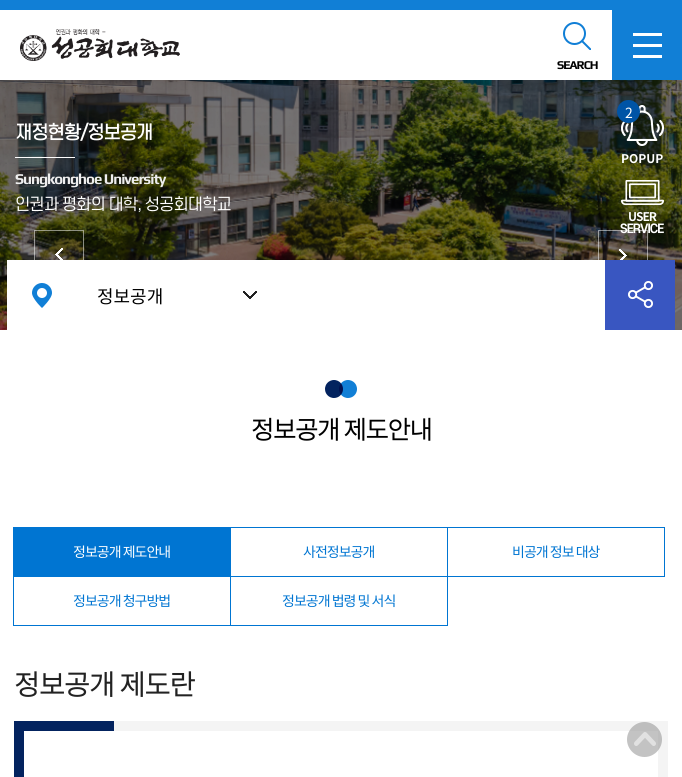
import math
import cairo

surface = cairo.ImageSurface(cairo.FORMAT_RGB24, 682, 777)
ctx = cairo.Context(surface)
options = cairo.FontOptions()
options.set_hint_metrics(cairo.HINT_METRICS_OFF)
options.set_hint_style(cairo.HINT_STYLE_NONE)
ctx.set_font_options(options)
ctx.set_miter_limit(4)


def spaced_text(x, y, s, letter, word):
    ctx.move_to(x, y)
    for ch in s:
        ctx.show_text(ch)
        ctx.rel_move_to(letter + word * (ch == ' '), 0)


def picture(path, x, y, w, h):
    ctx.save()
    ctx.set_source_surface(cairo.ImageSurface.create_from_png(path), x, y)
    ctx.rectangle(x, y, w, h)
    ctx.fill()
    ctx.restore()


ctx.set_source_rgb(1, 1, 1)
ctx.paint()
ctx.set_source_rgb(0.067, 0.498, 0.839)
ctx.rectangle(0, 0, 682, 10)
ctx.fill()
picture("img1.png", 20, 29, 160, 32)
picture("img2.png", 563, 22, 28, 28)
ctx.select_font_face("Play", cairo.FONT_SLANT_NORMAL, cairo.FONT_WEIGHT_BOLD)
ctx.set_font_size(12)
ctx.set_source_rgb(0, 0, 0)
spaced_text(557, 69, "SEARCH", -1, 0)
ctx.set_source_rgb(0.067, 0.498, 0.839)
ctx.rectangle(612, 10, 70, 70)
ctx.fill()
picture("img3.png", 633, 33, 29, 25)
picture("img4.png", 0, 80, 682, 250)
ctx.select_font_face("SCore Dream", cairo.FONT_SLANT_NORMAL, cairo.FONT_WEIGHT_BOLD)
ctx.set_font_size(18)
ctx.set_source_rgb(1, 1, 1)
spaced_text(15, 139, "재정현황/정보공개", -1, 0)
ctx.rectangle(15, 157, 60, 1)
ctx.fill()
ctx.select_font_face("Play", cairo.FONT_SLANT_NORMAL, cairo.FONT_WEIGHT_BOLD)
ctx.set_font_size(15)
ctx.set_source_rgb(0.933, 0.933, 0.933)
spaced_text(15, 184, "Sungkonghoe University", -1, 0)
ctx.select_font_face("SCore Dream")
ctx.set_font_size(16)
ctx.set_source_rgb(1, 1, 1)
spaced_text(15, 210, "인권과 평화의 대학, 성공회대학교", -1, 0)
picture("img5.png", 55, 248, 8, 12)
ctx.rectangle(34.5, 230.5, 49, 49)
ctx.set_source_rgba(1, 1, 1, 0.5)
ctx.set_line_width(1)
ctx.stroke()
picture("img6.png", 619, 249, 8, 11)
ctx.rectangle(598.5, 230.5, 49, 49)
ctx.stroke()
picture("img7.png", 621, 105, 43, 41)
ctx.set_source_rgb(0, 0.329, 0.651)
ctx.arc(628.5, 111.5, 11.5, 0, 2 * math.pi)
ctx.fill()
ctx.select_font_face("Noto Sans KR")
ctx.set_font_size(14)
ctx.set_source_rgb(1, 1, 1)
ctx.move_to(625, 118)
ctx.show_text("2")
ctx.select_font_face("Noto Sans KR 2", cairo.FONT_SLANT_NORMAL, cairo.FONT_WEIGHT_BOLD)
ctx.set_font_size(12)
ctx.move_to(621, 163)
ctx.show_text("POPUP")
picture("img8.png", 621, 180, 43, 25)
spaced_text(628, 221, "USER", -1, 0)
ctx.select_font_face("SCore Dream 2", cairo.FONT_SLANT_NORMAL, cairo.FONT_WEIGHT_BOLD)
spaced_text(620, 233, "SERVICE", -1, 0)
ctx.rectangle(7, 260, 598, 70)
ctx.fill()
picture("img9.png", 32, 283, 20, 25)
ctx.select_font_face("Noto Sans KR")
ctx.set_font_size(18)
ctx.set_source_rgb(0, 0, 0)
ctx.move_to(97, 303)
ctx.show_text("정보공개")
picture("img10.png", 243, 291, 14, 8)
ctx.set_source_rgb(0.224, 0.337, 0.757)
ctx.rectangle(605, 260, 70, 70)
ctx.fill()
picture("img11.png", 628, 281, 25, 27)
picture("img12.png", 325, 380, 32, 18)
ctx.select_font_face("Noto Sans KR", cairo.FONT_SLANT_NORMAL, cairo.FONT_WEIGHT_BOLD)
ctx.set_font_size(25)
ctx.set_source_rgb(0, 0, 0)
spaced_text(251, 439, "정보공개 제도안내", -1, 0)
ctx.set_source_rgb(0, 0.459, 0.824)
ctx.rectangle(13, 527, 217, 49)
ctx.fill()
ctx.select_font_face("Noto Sans KR")
ctx.set_font_size(14)
ctx.set_source_rgb(1, 1, 1)
spaced_text(73, 557, "정보공개 제도안내", -1, 0)
ctx.rectangle(230.5, 527.5, 217, 49)
ctx.set_source_rgb(0, 0.459, 0.824)
ctx.stroke()
spaced_text(303, 557, "사전정보공개", -1, 0)
ctx.rectangle(447.5, 527.5, 217, 49)
ctx.stroke()
spaced_text(512, 557, "비공개 정보 대상", -1, 0)
ctx.rectangle(13.5, 576.5, 217, 49)
ctx.stroke()
spaced_text(73, 606, "정보공개 청구방법", -1, 0)
ctx.rectangle(230.5, 576.5, 217, 49)
ctx.stroke()
spaced_text(282, 606, "정보공개 법령 및 서식", -1, 0)
ctx.select_font_face("Noto Sans KR", cairo.FONT_SLANT_NORMAL, cairo.FONT_WEIGHT_BOLD)
ctx.set_font_size(28)
ctx.set_source_rgb(0.133, 0.133, 0.133)
spaced_text(14, 695, "정보공개 제도란", -0.75, 0)
ctx.rectangle(19, 726, 644, 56)
ctx.set_source_rgb(0.957, 0.957, 0.957)
ctx.set_line_width(10)
ctx.stroke()
picture("img13.png", 14, 721, 100, 56)
ctx.set_source_rgba(0.533, 0.533, 0.533, 0.5)
ctx.new_path()
ctx.move_to(627, 739.5)
ctx.curve_to(627, 730, 635, 722, 644.5, 722)
ctx.curve_to(654, 722, 662, 730, 662, 739.5)
ctx.curve_to(662, 749, 654, 757, 644.5, 757)
ctx.curve_to(635, 757, 627, 749, 627, 739.5)
ctx.close_path()
ctx.fill()
picture("img14.png", 634, 732, 22, 14)
surface.write_to_png("page.png")
